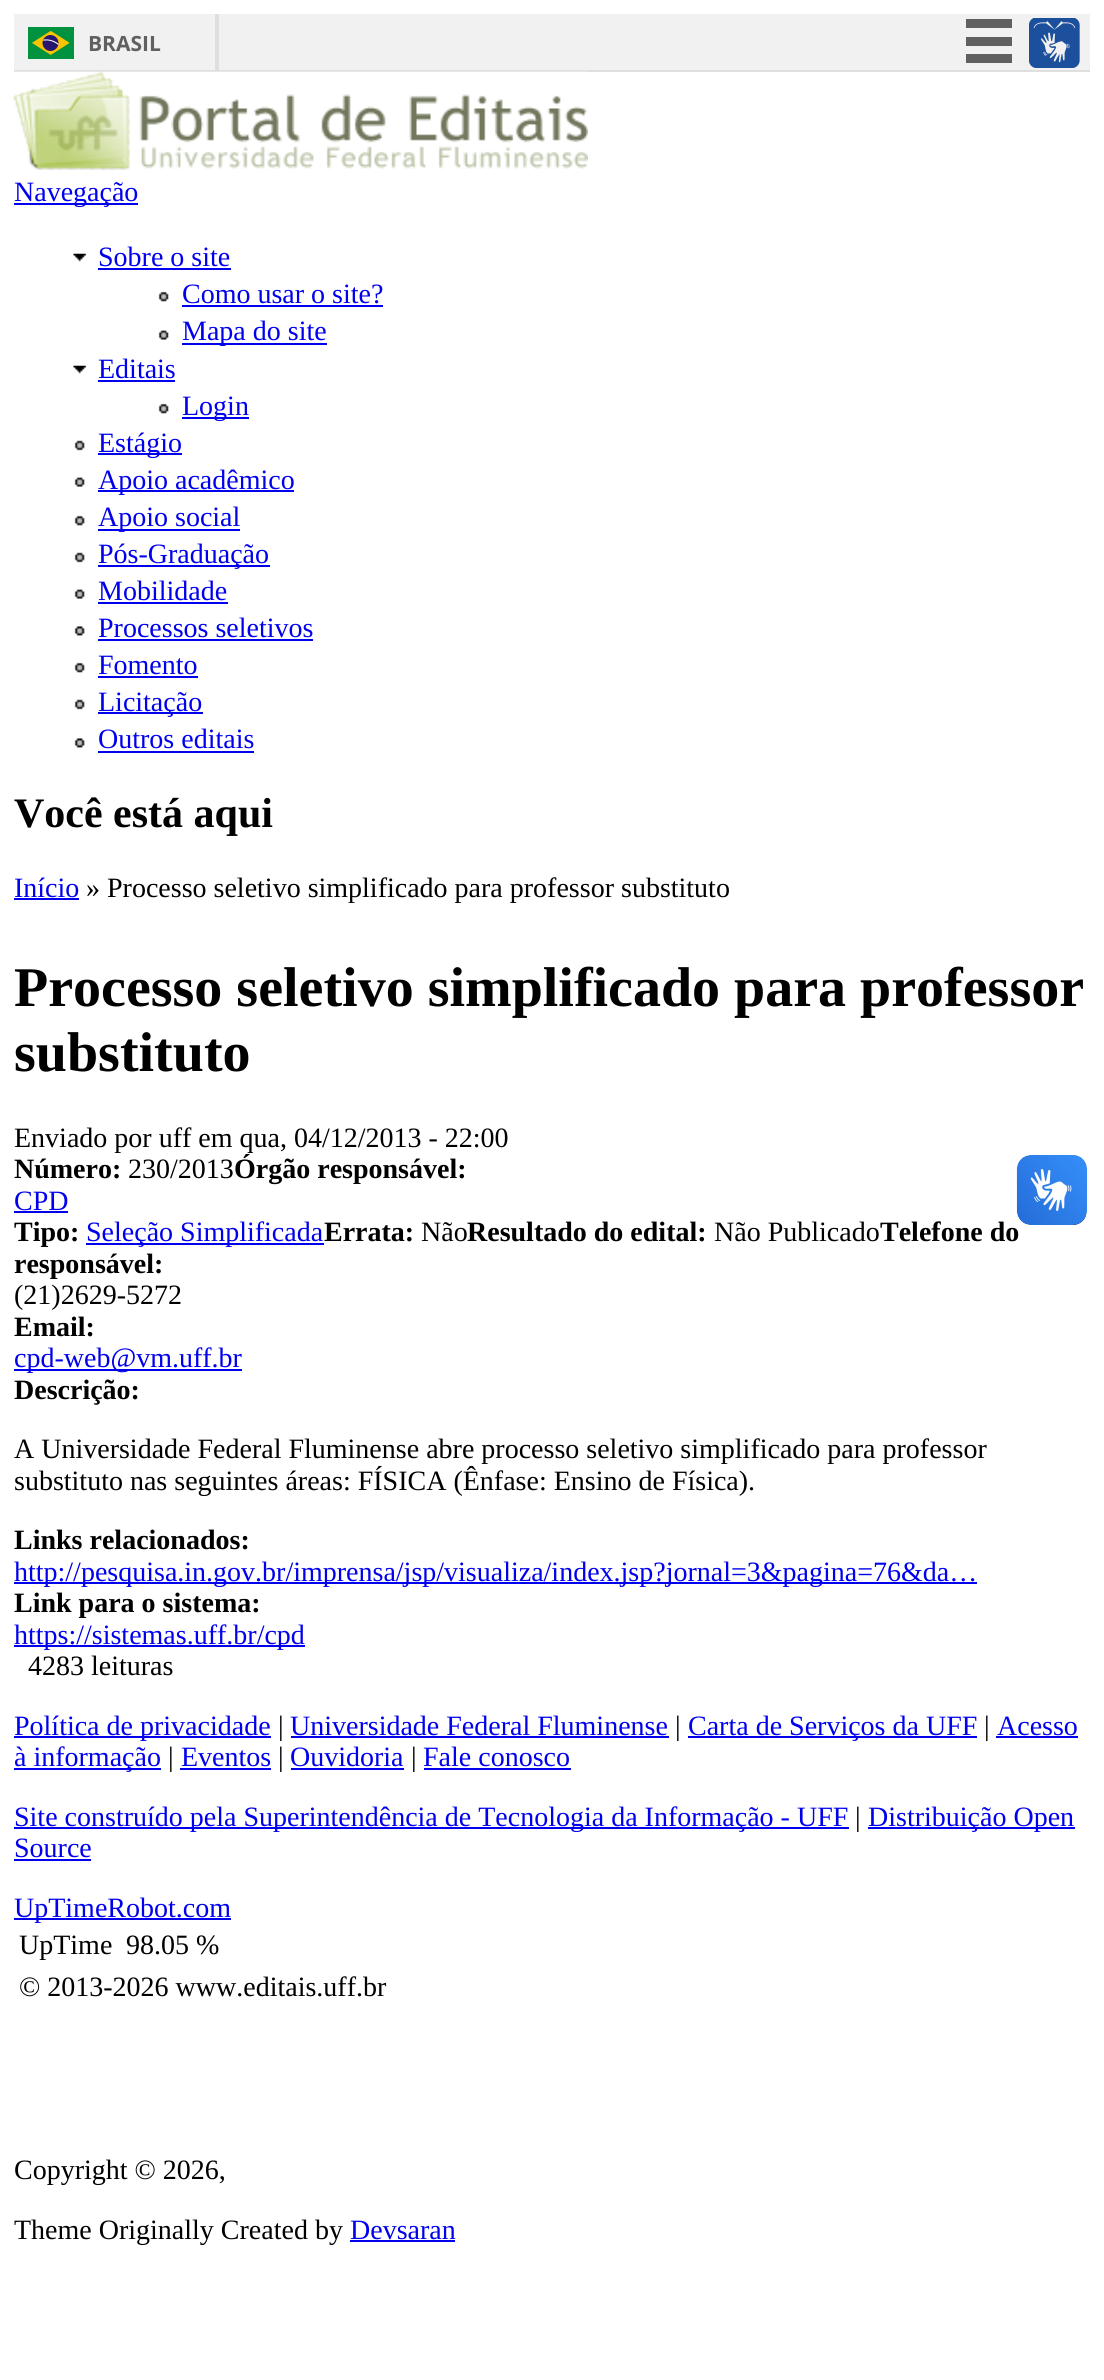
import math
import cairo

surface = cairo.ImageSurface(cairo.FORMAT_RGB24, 1104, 2380)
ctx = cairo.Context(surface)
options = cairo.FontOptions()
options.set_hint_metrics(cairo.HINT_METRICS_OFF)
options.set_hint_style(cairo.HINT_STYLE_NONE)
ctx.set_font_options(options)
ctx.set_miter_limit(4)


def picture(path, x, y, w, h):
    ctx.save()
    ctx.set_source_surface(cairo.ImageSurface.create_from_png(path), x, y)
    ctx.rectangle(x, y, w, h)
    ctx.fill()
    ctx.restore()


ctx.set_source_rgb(1, 1, 1)
ctx.paint()
ctx.set_source_rgb(0.945, 0.945, 0.945)
ctx.rectangle(14, 14, 1076, 56)
ctx.fill()
ctx.set_source_rgb(0.875, 0.875, 0.875)
ctx.rectangle(14, 70, 1076, 2)
ctx.fill()
ctx.rectangle(215, 14, 4, 56)
ctx.fill()
picture("img1.png", 28, 27, 46, 32)
ctx.select_font_face("Open Sans", cairo.FONT_SLANT_NORMAL, cairo.FONT_WEIGHT_BOLD)
ctx.set_font_size(21)
ctx.set_source_rgb(0.376, 0.376, 0.376)
ctx.move_to(88, 51)
ctx.show_text("BRASIL")
ctx.rectangle(966, 19, 46, 9)
ctx.fill()
ctx.rectangle(966, 37, 46, 9)
ctx.fill()
ctx.rectangle(966, 54, 46, 9)
ctx.fill()
picture("img2.png", 1029, 18, 51, 50)
picture("img3.png", 14, 71, 574, 99)
ctx.set_source_rgb(0, 0, 0.933)
ctx.rectangle(14, 203, 124, 2)
ctx.fill()
ctx.select_font_face("Liberation Serif")
ctx.set_font_size(28)
ctx.move_to(14, 201)
ctx.show_text("Navegação")
picture("img4.png", 73, 253, 13, 9)
ctx.move_to(98, 266)
ctx.show_text("Sobre o site")
ctx.rectangle(98, 268, 133, 2)
ctx.fill()
picture("img5.png", 158, 291, 11, 11)
ctx.move_to(182, 303)
ctx.show_text("Como usar o site?")
ctx.rectangle(182, 305, 201, 2)
ctx.fill()
picture("img6.png", 158, 330, 11, 10)
ctx.rectangle(182, 343, 145, 2)
ctx.fill()
ctx.move_to(182, 340)
ctx.show_text("Mapa do site")
picture("img4.png", 73, 365, 13, 9)
ctx.move_to(98, 378)
ctx.show_text("Editais")
ctx.rectangle(98, 380, 77, 2)
ctx.fill()
picture("img5.png", 158, 403, 11, 11)
ctx.rectangle(182, 417, 67, 2)
ctx.fill()
ctx.move_to(182, 415)
ctx.show_text("Login")
picture("img7.png", 74, 440, 11, 11)
ctx.rectangle(98, 453, 84, 2)
ctx.fill()
ctx.move_to(98, 452)
ctx.show_text("Estágio")
picture("img8.png", 74, 477, 11, 10)
ctx.rectangle(98, 490, 196, 2)
ctx.fill()
ctx.move_to(98, 489)
ctx.show_text("Apoio acadêmico")
picture("img9.png", 74, 515, 11, 11)
ctx.rectangle(98, 529, 142, 2)
ctx.fill()
ctx.move_to(98, 526)
ctx.show_text("Apoio social")
picture("img7.png", 74, 552, 11, 11)
ctx.rectangle(98, 565, 172, 2)
ctx.fill()
ctx.move_to(98, 563)
ctx.show_text("Pós-Graduação")
picture("img8.png", 74, 589, 11, 10)
ctx.move_to(98, 600)
ctx.show_text("Mobilidade")
ctx.rectangle(98, 602, 130, 2)
ctx.fill()
picture("img10.png", 74, 626, 11, 10)
ctx.move_to(98, 637)
ctx.show_text("Processos seletivos")
ctx.rectangle(98, 639, 215, 2)
ctx.fill()
picture("img9.png", 74, 662, 11, 11)
ctx.move_to(98, 674)
ctx.show_text("Fomento")
ctx.rectangle(98, 676, 100, 2)
ctx.fill()
picture("img7.png", 74, 699, 11, 11)
ctx.rectangle(98, 712, 105, 2)
ctx.fill()
ctx.move_to(98, 711)
ctx.show_text("Licitação")
picture("img10.png", 74, 738, 11, 10)
ctx.move_to(98, 748)
ctx.show_text("Outros editais")
ctx.rectangle(98, 751, 156, 2)
ctx.fill()
ctx.select_font_face("Liberation Serif", cairo.FONT_SLANT_NORMAL, cairo.FONT_WEIGHT_BOLD)
ctx.set_font_size(42)
ctx.set_source_rgb(0, 0, 0)
ctx.move_to(14, 827)
ctx.show_text("Você está aqui")
ctx.select_font_face("Liberation Serif")
ctx.set_font_size(28)
ctx.set_source_rgb(0, 0, 0.933)
ctx.move_to(14, 897)
ctx.show_text("Início")
ctx.rectangle(14, 898, 65, 2)
ctx.fill()
ctx.set_source_rgb(0, 0, 0)
ctx.move_to(86, 897)
ctx.show_text("» Processo seletivo simplificado para professor substituto")
ctx.select_font_face("Liberation Serif", cairo.FONT_SLANT_NORMAL, cairo.FONT_WEIGHT_BOLD)
ctx.set_font_size(56)
ctx.move_to(14, 1006)
ctx.show_text("Processo seletivo simplificado para professor")
ctx.move_to(14, 1071)
ctx.show_text("substituto")
ctx.select_font_face("Liberation Serif")
ctx.set_font_size(28)
ctx.move_to(14, 1147)
ctx.show_text("Enviado por uff em qua, 04/12/2013 - 22:00")
ctx.select_font_face("Liberation Serif", cairo.FONT_SLANT_NORMAL, cairo.FONT_WEIGHT_BOLD)
ctx.move_to(234, 1178)
ctx.show_text("Órgão responsável:")
ctx.select_font_face("Liberation Serif")
ctx.set_source_rgb(0, 0, 0.933)
ctx.move_to(14, 1210)
ctx.show_text("CPD")
ctx.rectangle(14, 1211, 54, 2)
ctx.fill()
ctx.select_font_face("Liberation Serif", cairo.FONT_SLANT_NORMAL, cairo.FONT_WEIGHT_BOLD)
ctx.set_source_rgb(0, 0, 0)
ctx.move_to(14, 1178)
ctx.show_text("Número:")
ctx.select_font_face("Liberation Serif")
ctx.move_to(128, 1178)
ctx.show_text("230/2013")
ctx.select_font_face("Liberation Serif", cairo.FONT_SLANT_NORMAL, cairo.FONT_WEIGHT_BOLD)
ctx.move_to(14, 1241)
ctx.show_text("Tipo:")
ctx.set_source_rgb(0, 0, 0.933)
ctx.rectangle(86, 1243, 238, 2)
ctx.fill()
ctx.select_font_face("Liberation Serif")
ctx.move_to(86, 1241)
ctx.show_text("Seleção Simplificada")
ctx.select_font_face("Liberation Serif", cairo.FONT_SLANT_NORMAL, cairo.FONT_WEIGHT_BOLD)
ctx.set_source_rgb(0, 0, 0)
ctx.move_to(880, 1241)
ctx.show_text("Telefone do")
ctx.move_to(14, 1273)
ctx.show_text("responsável:")
ctx.select_font_face("Liberation Serif")
ctx.move_to(14, 1304)
ctx.show_text("(21)2629-5272")
ctx.select_font_face("Liberation Serif", cairo.FONT_SLANT_NORMAL, cairo.FONT_WEIGHT_BOLD)
ctx.move_to(324, 1241)
ctx.show_text("Errata:")
ctx.select_font_face("Liberation Serif")
ctx.move_to(421, 1241)
ctx.show_text("Não")
ctx.select_font_face("Liberation Serif", cairo.FONT_SLANT_NORMAL, cairo.FONT_WEIGHT_BOLD)
ctx.move_to(467, 1241)
ctx.show_text("Resultado do edital:")
ctx.select_font_face("Liberation Serif")
ctx.move_to(714, 1241)
ctx.show_text("Não Publicado")
ctx.select_font_face("Liberation Serif", cairo.FONT_SLANT_NORMAL, cairo.FONT_WEIGHT_BOLD)
ctx.move_to(14, 1336)
ctx.show_text("Email:")
ctx.set_source_rgb(0, 0, 0.933)
ctx.rectangle(14, 1369, 228, 2)
ctx.fill()
ctx.select_font_face("Liberation Serif")
ctx.move_to(14, 1367)
ctx.show_text("cpd-web@vm.uff.br")
ctx.select_font_face("Liberation Serif", cairo.FONT_SLANT_NORMAL, cairo.FONT_WEIGHT_BOLD)
ctx.set_source_rgb(0, 0, 0)
ctx.move_to(14, 1399)
ctx.show_text("Descrição:")
ctx.select_font_face("Liberation Serif")
ctx.move_to(14, 1458)
ctx.show_text("A Universidade Federal Fluminense abre processo seletivo simplificado para professor")
ctx.move_to(14, 1490)
ctx.show_text("substituto nas seguintes áreas: FÍSICA (Ênfase: Ensino de Física).")
ctx.select_font_face("Liberation Serif", cairo.FONT_SLANT_NORMAL, cairo.FONT_WEIGHT_BOLD)
ctx.move_to(14, 1549)
ctx.show_text("Links relacionados:")
ctx.set_source_rgb(0, 0, 0.933)
ctx.rectangle(14, 1582, 963, 2)
ctx.fill()
ctx.select_font_face("Liberation Serif")
ctx.move_to(14, 1581)
ctx.show_text("http://pesquisa.in.gov.br/imprensa/jsp/visualiza/index.jsp?jornal=3&pagina=76&da…")
ctx.select_font_face("Liberation Serif", cairo.FONT_SLANT_NORMAL, cairo.FONT_WEIGHT_BOLD)
ctx.set_source_rgb(0, 0, 0)
ctx.move_to(14, 1612)
ctx.show_text("Link para o sistema:")
ctx.set_source_rgb(0, 0, 0.933)
ctx.rectangle(14, 1645, 291, 2)
ctx.fill()
ctx.select_font_face("Liberation Serif")
ctx.move_to(14, 1644)
ctx.show_text("https://sistemas.uff.br/cpd")
ctx.set_source_rgb(0, 0, 0)
ctx.move_to(28, 1675)
ctx.show_text("4283 leituras")
ctx.set_source_rgb(0, 0, 0.933)
ctx.rectangle(14, 1736, 257, 2)
ctx.fill()
ctx.move_to(14, 1735)
ctx.show_text("Política de privacidade")
ctx.set_source_rgb(0, 0, 0)
ctx.move_to(278, 1735)
ctx.show_text("|")
ctx.set_source_rgb(0, 0, 0.933)
ctx.move_to(290, 1735)
ctx.show_text("Universidade Federal Fluminense")
ctx.rectangle(291, 1736, 378, 2)
ctx.fill()
ctx.set_source_rgb(0, 0, 0)
ctx.move_to(675, 1735)
ctx.show_text("|")
ctx.set_source_rgb(0, 0, 0.933)
ctx.rectangle(688, 1736, 289, 2)
ctx.fill()
ctx.move_to(688, 1735)
ctx.show_text("Carta de Serviços da UFF")
ctx.set_source_rgb(0, 0, 0)
ctx.move_to(984, 1735)
ctx.show_text("|")
ctx.set_source_rgb(0, 0, 0.933)
ctx.move_to(997, 1735)
ctx.show_text("Acesso")
ctx.rectangle(996, 1736, 82, 2)
ctx.fill()
ctx.rectangle(14, 1768, 147, 2)
ctx.fill()
ctx.move_to(14, 1766)
ctx.show_text("à informação")
ctx.set_source_rgb(0, 0, 0)
ctx.move_to(168, 1766)
ctx.show_text("|")
ctx.set_source_rgb(0, 0, 0.933)
ctx.move_to(181, 1766)
ctx.show_text("Eventos")
ctx.rectangle(180, 1768, 91, 2)
ctx.fill()
ctx.set_source_rgb(0, 0, 0)
ctx.move_to(278, 1766)
ctx.show_text("|")
ctx.set_source_rgb(0, 0, 0.933)
ctx.move_to(290, 1766)
ctx.show_text("Ouvidoria")
ctx.rectangle(291, 1768, 113, 2)
ctx.fill()
ctx.set_source_rgb(0, 0, 0)
ctx.move_to(411, 1766)
ctx.show_text("|")
ctx.set_source_rgb(0, 0, 0.933)
ctx.move_to(423, 1766)
ctx.show_text("Fale conosco")
ctx.rectangle(424, 1768, 147, 2)
ctx.fill()
ctx.rectangle(14, 1827, 835, 2)
ctx.fill()
ctx.move_to(14, 1826)
ctx.show_text("Site construído pela Superintendência de Tecnologia da Informação - UFF")
ctx.set_source_rgb(0, 0, 0)
ctx.move_to(855, 1826)
ctx.show_text("|")
ctx.set_source_rgb(0, 0, 0.933)
ctx.rectangle(868, 1827, 207, 2)
ctx.fill()
ctx.move_to(868, 1826)
ctx.show_text("Distribuição Open")
ctx.move_to(14, 1857)
ctx.show_text("Source")
ctx.rectangle(14, 1859, 77, 2)
ctx.fill()
ctx.rectangle(14, 1918, 217, 2)
ctx.fill()
ctx.move_to(14, 1917)
ctx.show_text("UpTimeRobot.com")
ctx.set_source_rgb(0, 0, 0)
ctx.move_to(19, 1954)
ctx.show_text("UpTime")
ctx.move_to(126, 1954)
ctx.show_text("98.05 %")
ctx.move_to(19, 1996)
ctx.show_text("© 2013-2026 www.editais.uff.br")
ctx.move_to(14, 2179)
ctx.show_text("Copyright © 2026,")
ctx.move_to(14, 2239)
ctx.show_text("Theme Originally Created by")
ctx.set_source_rgb(0, 0, 0.933)
ctx.move_to(350, 2239)
ctx.show_text("Devsaran")
ctx.rectangle(350, 2240, 105, 2)
ctx.fill()
picture("img11.png", 1016, 1155, 71, 70)
picture("img12.png", 1017, 1155, 70, 70)
surface.write_to_png("page.png")
